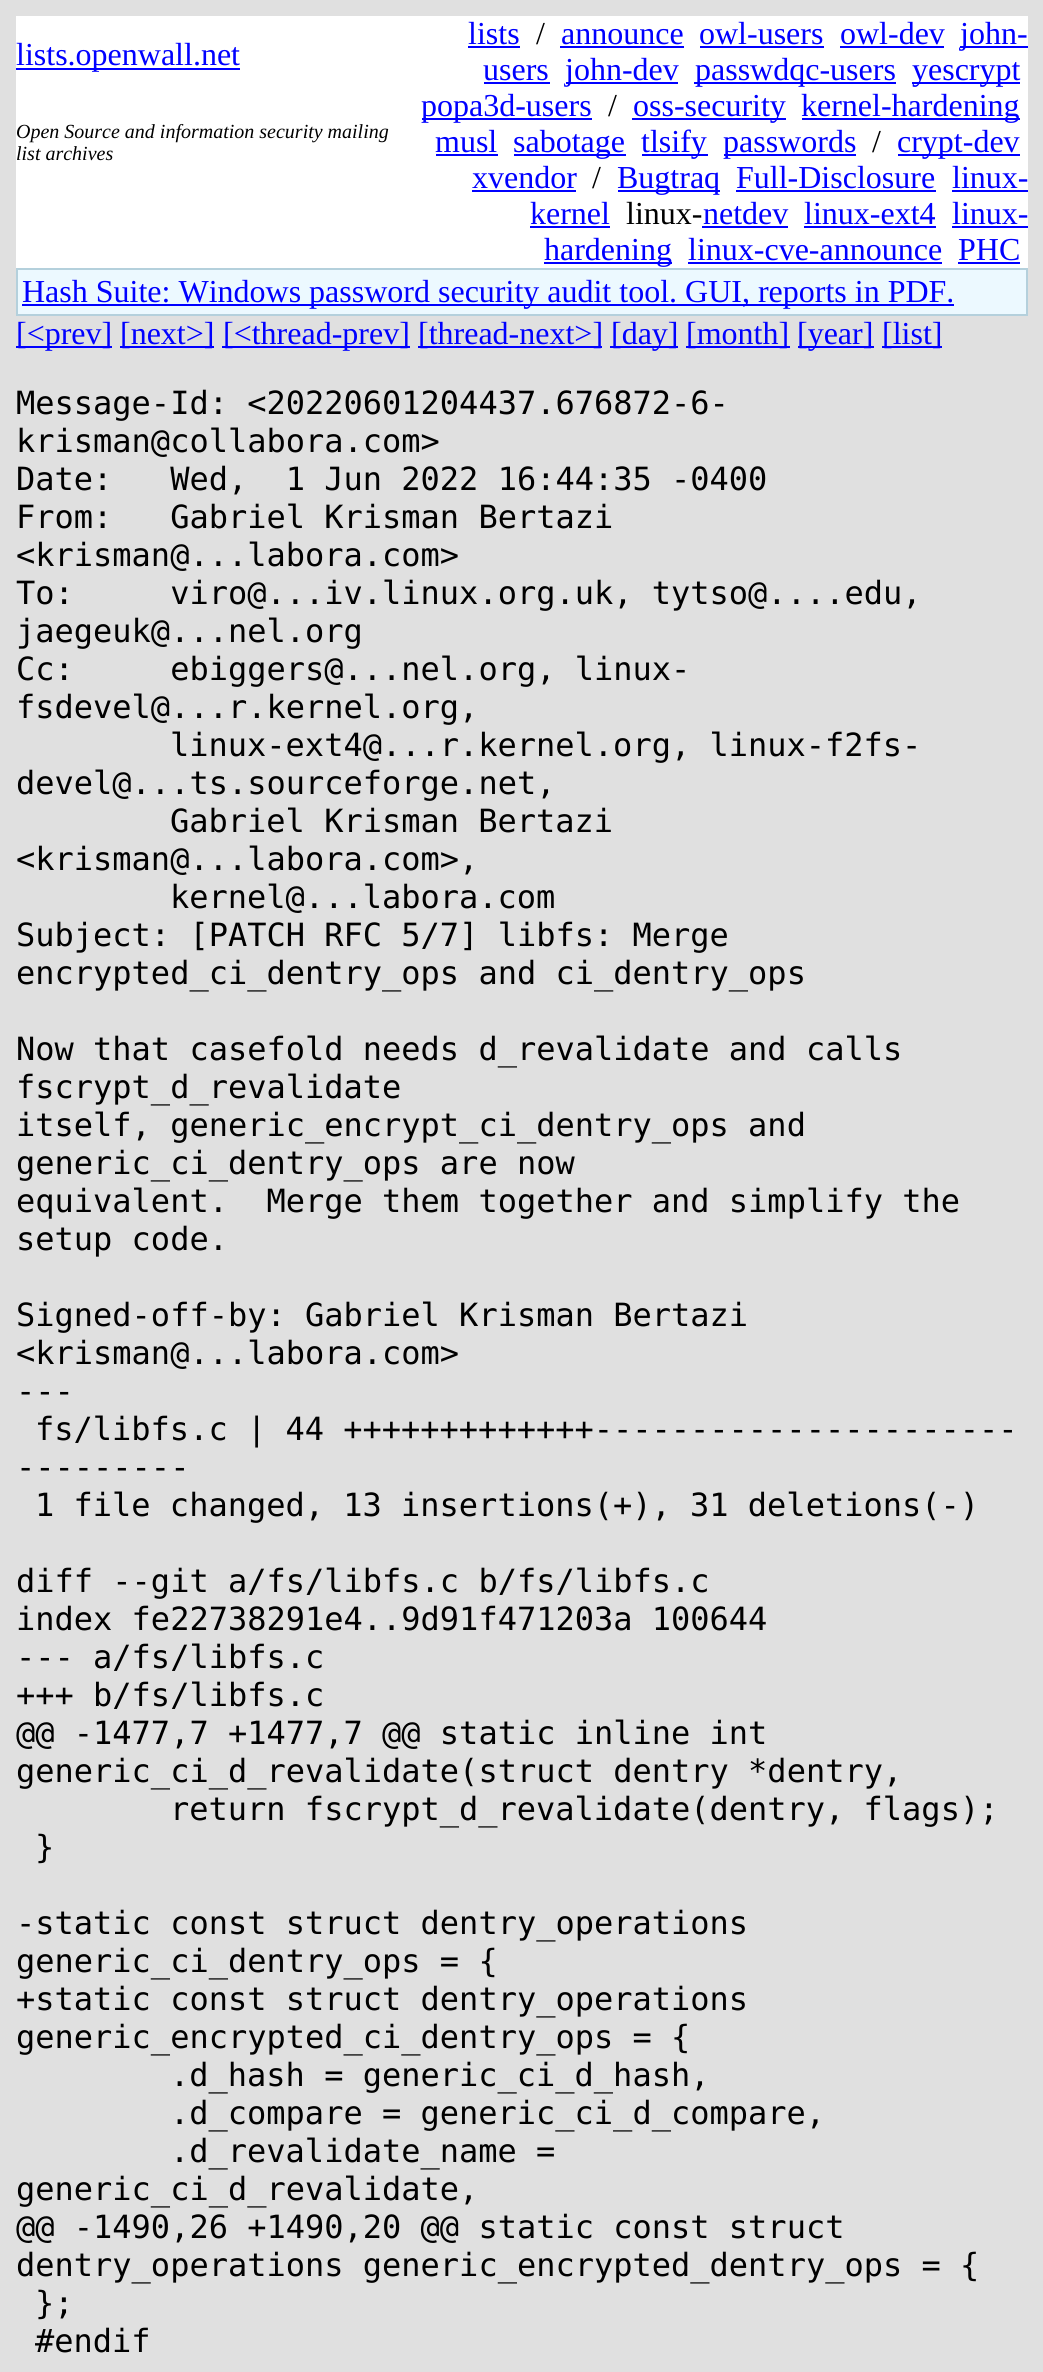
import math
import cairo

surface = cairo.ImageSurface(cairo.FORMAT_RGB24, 1043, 2372)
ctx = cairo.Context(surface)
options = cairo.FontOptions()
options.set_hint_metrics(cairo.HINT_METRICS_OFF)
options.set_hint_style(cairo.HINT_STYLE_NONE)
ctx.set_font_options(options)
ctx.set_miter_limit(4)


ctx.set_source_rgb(0.878, 0.878, 0.878)
ctx.paint()
ctx.set_source_rgb(1, 1, 1)
ctx.rectangle(16, 16, 1012, 252)
ctx.fill()
ctx.set_source_rgb(0, 0, 1)
ctx.rectangle(16, 68, 224, 2)
ctx.fill()
ctx.select_font_face("Liberation Serif")
ctx.set_font_size(32)
ctx.move_to(16, 65)
ctx.show_text("lists.openwall.net")
ctx.move_to(468, 44)
ctx.show_text("lists")
ctx.rectangle(468, 46, 52, 2)
ctx.fill()
ctx.set_source_rgb(0, 0, 0)
ctx.move_to(536, 44)
ctx.show_text("/")
ctx.set_source_rgb(0, 0, 1)
ctx.move_to(561, 44)
ctx.show_text("announce")
ctx.rectangle(560, 46, 124, 2)
ctx.fill()
ctx.move_to(699, 44)
ctx.show_text("owl-users")
ctx.rectangle(700, 46, 124, 2)
ctx.fill()
ctx.move_to(840, 44)
ctx.show_text("owl-dev")
ctx.rectangle(840, 46, 104, 2)
ctx.fill()
ctx.rectangle(960, 46, 68, 2)
ctx.fill()
ctx.move_to(960, 44)
ctx.show_text("john-")
ctx.move_to(483, 80)
ctx.show_text("users")
ctx.rectangle(484, 82, 66, 2)
ctx.fill()
ctx.rectangle(566, 82, 112, 2)
ctx.fill()
ctx.move_to(565, 80)
ctx.show_text("john-dev")
ctx.rectangle(694, 82, 202, 2)
ctx.fill()
ctx.move_to(695, 80)
ctx.show_text("passwdqc-users")
ctx.rectangle(912, 82, 108, 2)
ctx.fill()
ctx.move_to(912, 80)
ctx.show_text("yescrypt")
ctx.rectangle(422, 118, 170, 2)
ctx.fill()
ctx.move_to(421, 116)
ctx.show_text("popa3d-users")
ctx.set_source_rgb(0, 0, 0)
ctx.move_to(608, 116)
ctx.show_text("/")
ctx.set_source_rgb(0, 0, 1)
ctx.rectangle(632, 118, 154, 2)
ctx.fill()
ctx.move_to(633, 116)
ctx.show_text("oss-security")
ctx.rectangle(802, 118, 218, 2)
ctx.fill()
ctx.move_to(801, 116)
ctx.show_text("kernel-hardening")
ctx.move_to(435, 152)
ctx.show_text("musl")
ctx.rectangle(436, 154, 62, 2)
ctx.fill()
ctx.rectangle(514, 154, 112, 2)
ctx.fill()
ctx.move_to(513, 152)
ctx.show_text("sabotage")
ctx.rectangle(642, 154, 66, 2)
ctx.fill()
ctx.move_to(641, 152)
ctx.show_text("tlsify")
ctx.rectangle(724, 154, 132, 2)
ctx.fill()
ctx.move_to(723, 152)
ctx.show_text("passwords")
ctx.set_source_rgb(0, 0, 0)
ctx.move_to(872, 152)
ctx.show_text("/")
ctx.set_source_rgb(0, 0, 1)
ctx.rectangle(898, 154, 122, 2)
ctx.fill()
ctx.move_to(897, 152)
ctx.show_text("crypt-dev")
ctx.move_to(472, 188)
ctx.show_text("xvendor")
ctx.rectangle(472, 190, 104, 2)
ctx.fill()
ctx.set_source_rgb(0, 0, 0)
ctx.move_to(592, 188)
ctx.show_text("/")
ctx.set_source_rgb(0, 0, 1)
ctx.rectangle(618, 190, 102, 2)
ctx.fill()
ctx.move_to(617, 188)
ctx.show_text("Bugtraq")
ctx.move_to(736, 188)
ctx.show_text("Full-Disclosure")
ctx.rectangle(736, 190, 200, 2)
ctx.fill()
ctx.move_to(952, 188)
ctx.show_text("linux-")
ctx.rectangle(952, 190, 76, 2)
ctx.fill()
ctx.move_to(530, 224)
ctx.show_text("kernel")
ctx.rectangle(530, 226, 80, 2)
ctx.fill()
ctx.set_source_rgb(0, 0, 0)
ctx.move_to(626, 224)
ctx.show_text("linux-")
ctx.set_source_rgb(0, 0, 1)
ctx.move_to(703, 224)
ctx.show_text("netdev")
ctx.rectangle(702, 226, 86, 2)
ctx.fill()
ctx.move_to(804, 224)
ctx.show_text("linux-ext4")
ctx.rectangle(804, 226, 132, 2)
ctx.fill()
ctx.move_to(952, 224)
ctx.show_text("linux-")
ctx.rectangle(952, 226, 76, 2)
ctx.fill()
ctx.rectangle(544, 262, 128, 2)
ctx.fill()
ctx.move_to(544, 260)
ctx.show_text("hardening")
ctx.move_to(688, 260)
ctx.show_text("linux-cve-announce")
ctx.rectangle(688, 262, 254, 2)
ctx.fill()
ctx.move_to(958, 260)
ctx.show_text("PHC")
ctx.rectangle(958, 262, 62, 2)
ctx.fill()
ctx.select_font_face("Liberation Serif", cairo.FONT_SLANT_ITALIC)
ctx.set_font_size(20)
ctx.set_source_rgb(0, 0, 0)
ctx.move_to(16, 138)
ctx.show_text("Open Source and information security mailing")
ctx.move_to(16, 160)
ctx.show_text("list archives")
ctx.set_source_rgb(0.706, 0.816, 0.863)
ctx.rectangle(16, 268, 1012, 48)
ctx.fill()
ctx.set_source_rgb(0.925, 0.973, 1)
ctx.rectangle(18, 270, 1008, 44)
ctx.fill()
ctx.set_source_rgb(0, 0, 1)
ctx.rectangle(22, 304, 932, 2)
ctx.fill()
ctx.select_font_face("Liberation Serif")
ctx.set_font_size(32)
ctx.move_to(22, 302)
ctx.show_text("Hash Suite: Windows password security audit tool. GUI, reports in PDF.")
ctx.rectangle(16, 346, 96, 2)
ctx.fill()
ctx.move_to(16, 344)
ctx.show_text("[<prev]")
ctx.rectangle(120, 346, 94, 2)
ctx.fill()
ctx.move_to(120, 344)
ctx.show_text("[next>]")
ctx.rectangle(222, 346, 188, 2)
ctx.fill()
ctx.move_to(223, 344)
ctx.show_text("[<thread-prev]")
ctx.rectangle(418, 346, 184, 2)
ctx.fill()
ctx.move_to(418, 344)
ctx.show_text("[thread-next>]")
ctx.rectangle(610, 346, 68, 2)
ctx.fill()
ctx.move_to(611, 344)
ctx.show_text("[day]")
ctx.rectangle(686, 346, 104, 2)
ctx.fill()
ctx.move_to(686, 344)
ctx.show_text("[month]")
ctx.rectangle(798, 346, 76, 2)
ctx.fill()
ctx.move_to(797, 344)
ctx.show_text("[year]")
ctx.rectangle(882, 346, 60, 2)
ctx.fill()
ctx.move_to(882, 344)
ctx.show_text("[list]")
ctx.select_font_face("DejaVu Sans Mono")
ctx.set_source_rgb(0, 0, 0)
ctx.move_to(16, 414)
ctx.show_text("Message-Id: <20220601204437.676872-6-")
ctx.move_to(16, 452)
ctx.show_text("krisman@collabora.com>")
ctx.move_to(16, 490)
ctx.show_text("Date:   Wed,  1 Jun 2022 16:44:35 -0400")
ctx.move_to(16, 528)
ctx.show_text("From:   Gabriel Krisman Bertazi")
ctx.move_to(16, 566)
ctx.show_text("<krisman@...labora.com>")
ctx.move_to(16, 604)
ctx.show_text("To:     viro@...iv.linux.org.uk, tytso@....edu,")
ctx.move_to(16, 642)
ctx.show_text("jaegeuk@...nel.org")
ctx.move_to(16, 680)
ctx.show_text("Cc:     ebiggers@...nel.org, linux-")
ctx.move_to(16, 718)
ctx.show_text("fsdevel@...r.kernel.org,")
ctx.move_to(170, 756)
ctx.show_text("linux-ext4@...r.kernel.org, linux-f2fs-")
ctx.move_to(16, 794)
ctx.show_text("devel@...ts.sourceforge.net,")
ctx.move_to(170, 832)
ctx.show_text("Gabriel Krisman Bertazi")
ctx.move_to(16, 870)
ctx.show_text("<krisman@...labora.com>,")
ctx.move_to(170, 908)
ctx.show_text("kernel@...labora.com")
ctx.move_to(16, 946)
ctx.show_text("Subject: [PATCH RFC 5/7] libfs: Merge")
ctx.move_to(16, 984)
ctx.show_text("encrypted_ci_dentry_ops and ci_dentry_ops")
ctx.move_to(16, 1060)
ctx.show_text("Now that casefold needs d_revalidate and calls")
ctx.move_to(16, 1098)
ctx.show_text("fscrypt_d_revalidate")
ctx.move_to(16, 1136)
ctx.show_text("itself, generic_encrypt_ci_dentry_ops and")
ctx.move_to(16, 1174)
ctx.show_text("generic_ci_dentry_ops are now")
ctx.move_to(16, 1212)
ctx.show_text("equivalent.  Merge them together and simplify the")
ctx.move_to(16, 1250)
ctx.show_text("setup code.")
ctx.move_to(16, 1326)
ctx.show_text("Signed-off-by: Gabriel Krisman Bertazi")
ctx.move_to(16, 1364)
ctx.show_text("<krisman@...labora.com>")
ctx.move_to(16, 1402)
ctx.show_text("---")
ctx.move_to(35, 1440)
ctx.show_text("fs/libfs.c | 44 +++++++++++++----------------------")
ctx.move_to(16, 1478)
ctx.show_text("---------")
ctx.move_to(35, 1516)
ctx.show_text("1 file changed, 13 insertions(+), 31 deletions(-)")
ctx.move_to(16, 1592)
ctx.show_text("diff --git a/fs/libfs.c b/fs/libfs.c")
ctx.move_to(16, 1630)
ctx.show_text("index fe22738291e4..9d91f471203a 100644")
ctx.move_to(16, 1668)
ctx.show_text("--- a/fs/libfs.c")
ctx.move_to(16, 1706)
ctx.show_text("+++ b/fs/libfs.c")
ctx.move_to(16, 1744)
ctx.show_text("@@ -1477,7 +1477,7 @@ static inline int")
ctx.move_to(16, 1782)
ctx.show_text("generic_ci_d_revalidate(struct dentry *dentry,")
ctx.move_to(170, 1820)
ctx.show_text("return fscrypt_d_revalidate(dentry, flags);")
ctx.move_to(35, 1858)
ctx.show_text("}")
ctx.move_to(16, 1934)
ctx.show_text("-static const struct dentry_operations")
ctx.move_to(16, 1972)
ctx.show_text("generic_ci_dentry_ops = {")
ctx.move_to(16, 2010)
ctx.show_text("+static const struct dentry_operations")
ctx.move_to(16, 2048)
ctx.show_text("generic_encrypted_ci_dentry_ops = {")
ctx.move_to(170, 2086)
ctx.show_text(".d_hash = generic_ci_d_hash,")
ctx.move_to(170, 2124)
ctx.show_text(".d_compare = generic_ci_d_compare,")
ctx.move_to(170, 2162)
ctx.show_text(".d_revalidate_name =")
ctx.move_to(16, 2200)
ctx.show_text("generic_ci_d_revalidate,")
ctx.move_to(16, 2238)
ctx.show_text("@@ -1490,26 +1490,20 @@ static const struct")
ctx.move_to(16, 2276)
ctx.show_text("dentry_operations generic_encrypted_dentry_ops = {")
ctx.move_to(35, 2314)
ctx.show_text("};")
ctx.move_to(35, 2352)
ctx.show_text("#endif")
surface.write_to_png("page.png")
